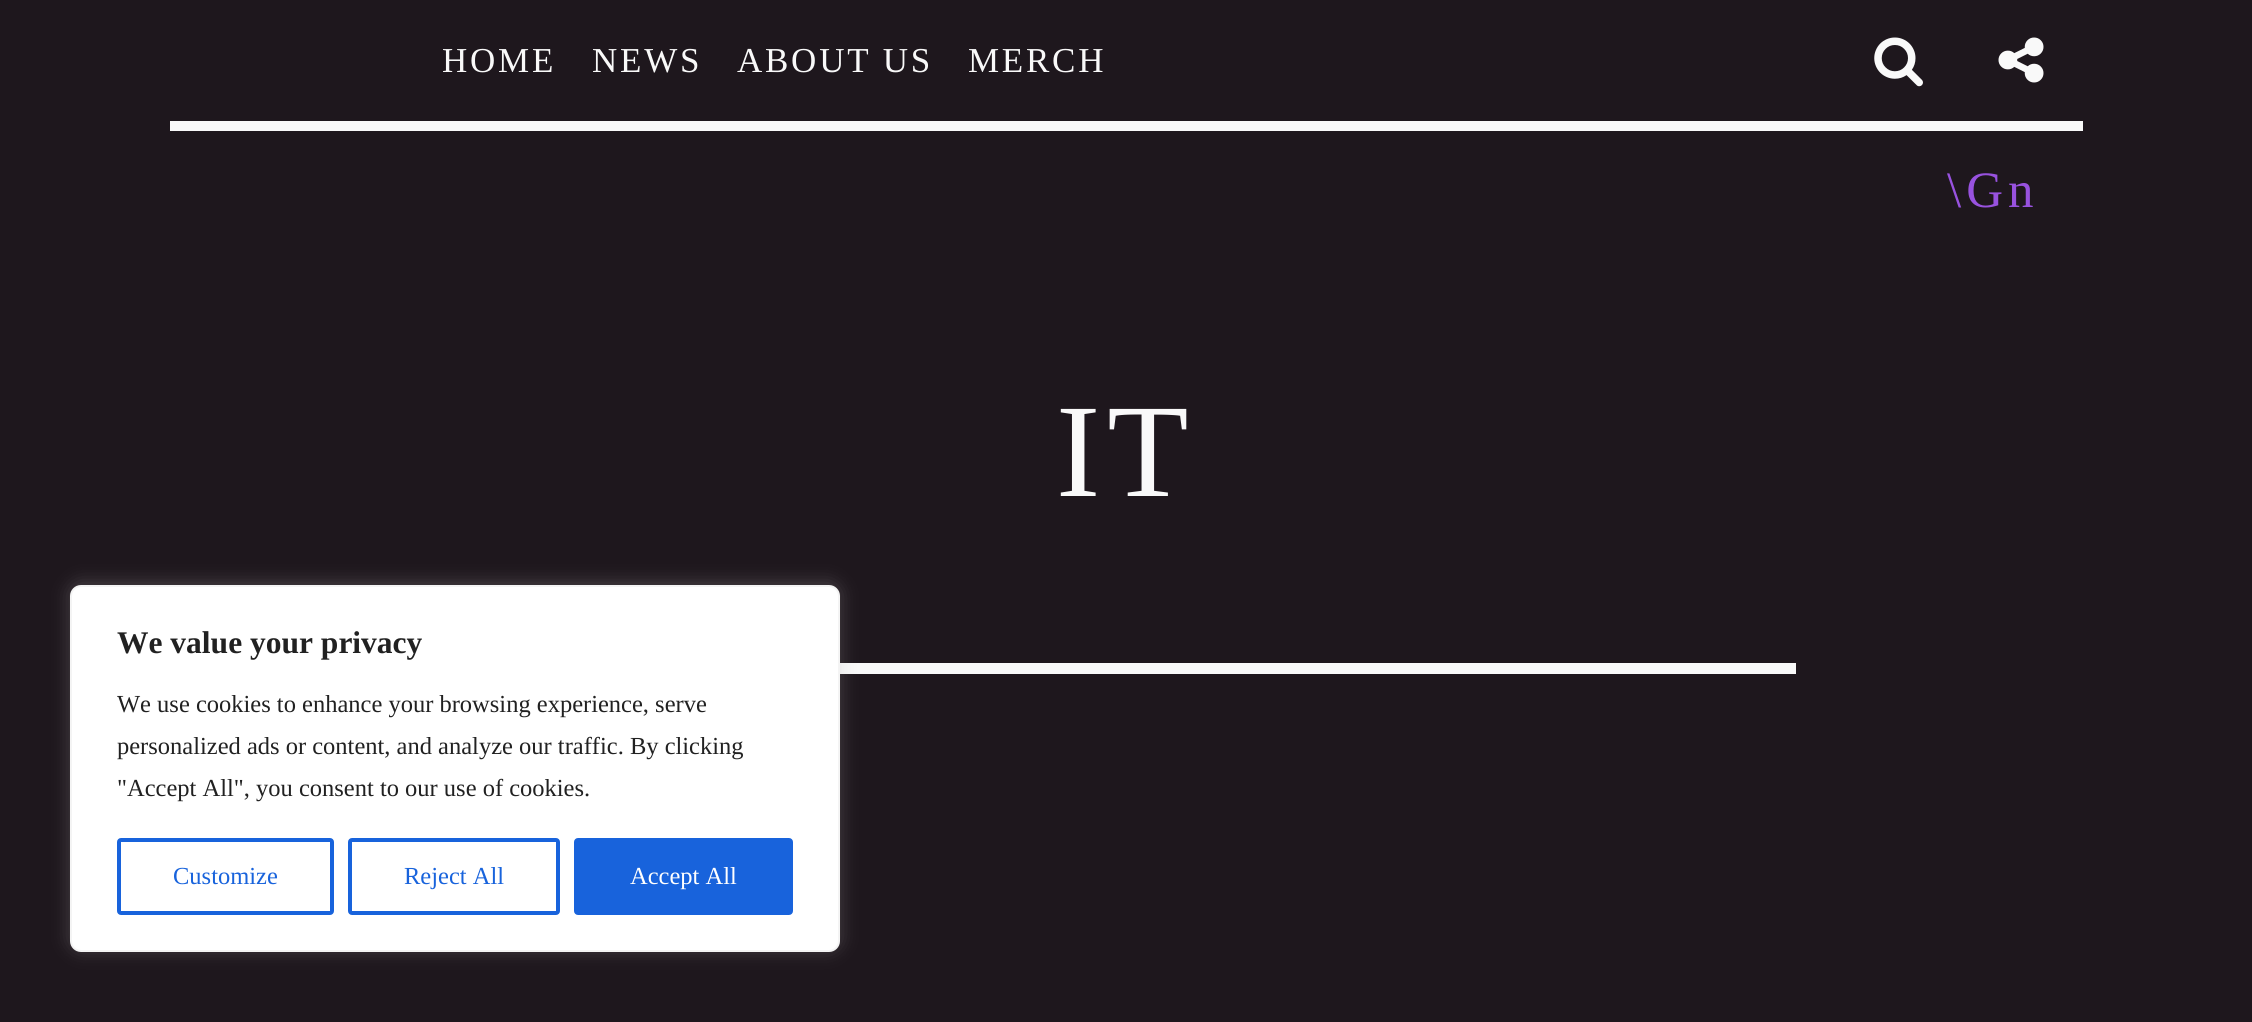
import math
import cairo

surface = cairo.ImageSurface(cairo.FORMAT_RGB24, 2252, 1022)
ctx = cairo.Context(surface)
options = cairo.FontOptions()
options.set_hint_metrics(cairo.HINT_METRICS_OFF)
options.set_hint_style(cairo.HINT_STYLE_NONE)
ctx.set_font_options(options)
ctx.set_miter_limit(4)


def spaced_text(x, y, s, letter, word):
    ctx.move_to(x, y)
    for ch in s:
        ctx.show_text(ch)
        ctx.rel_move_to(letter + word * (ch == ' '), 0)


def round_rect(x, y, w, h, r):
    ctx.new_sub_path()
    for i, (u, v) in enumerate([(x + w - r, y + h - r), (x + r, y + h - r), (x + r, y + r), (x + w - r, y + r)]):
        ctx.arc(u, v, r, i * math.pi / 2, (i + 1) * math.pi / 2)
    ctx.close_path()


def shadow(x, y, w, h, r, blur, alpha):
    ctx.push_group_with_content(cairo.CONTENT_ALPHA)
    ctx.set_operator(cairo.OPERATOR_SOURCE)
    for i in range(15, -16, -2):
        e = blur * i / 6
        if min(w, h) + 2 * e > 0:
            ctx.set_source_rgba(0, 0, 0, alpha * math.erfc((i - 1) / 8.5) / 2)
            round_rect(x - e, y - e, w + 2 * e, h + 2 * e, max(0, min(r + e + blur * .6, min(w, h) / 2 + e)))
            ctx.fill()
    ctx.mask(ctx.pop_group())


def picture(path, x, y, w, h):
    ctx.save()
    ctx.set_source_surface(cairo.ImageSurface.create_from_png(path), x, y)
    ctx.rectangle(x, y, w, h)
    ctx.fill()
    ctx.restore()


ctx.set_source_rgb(0.118, 0.09, 0.114)
ctx.paint()
ctx.select_font_face("Liberation Serif")
ctx.set_font_size(35)
ctx.set_source_rgb(0.976, 0.976, 0.976)
spaced_text(442, 72, "HOME", 2.75, 0)
spaced_text(592, 72, "NEWS", 2.75, 0)
spaced_text(737, 72, "ABOUT US", 2.75, 0)
spaced_text(968, 72, "MERCH", 2.75, 0)
picture("img1.png", 1874, 37, 49, 50)
picture("img2.png", 1998, 37, 46, 46)
ctx.rectangle(170, 121, 1913, 10)
ctx.fill()
ctx.set_font_size(51)
ctx.set_source_rgb(0.596, 0.322, 0.875)
spaced_text(1947, 207, "\\Gn", 5, 0)
ctx.set_font_size(133)
ctx.set_source_rgb(0.976, 0.976, 0.976)
spaced_text(1056, 496, "IT", 7, 0)
ctx.rectangle(840, 663, 956, 11)
ctx.fill()
ctx.set_source_rgb(0.675, 0.671, 0.671)
shadow(70, 583, 770, 367, 11, 9, 0.3)
ctx.set_source_rgb(1, 1, 1)
round_rect(71, 586, 768, 365, 10)
ctx.fill_preserve()
ctx.set_source_rgb(0.957, 0.957, 0.957)
ctx.stroke()
ctx.select_font_face("Liberation Serif", cairo.FONT_SLANT_NORMAL, cairo.FONT_WEIGHT_BOLD)
ctx.set_font_size(31.5)
ctx.set_source_rgb(0.129, 0.129, 0.129)
ctx.move_to(117, 653)
ctx.show_text("We value your privacy")
ctx.select_font_face("Liberation Serif")
ctx.set_font_size(24.5)
ctx.move_to(117, 712)
ctx.show_text("We use cookies to enhance your browsing experience, serve")
ctx.move_to(117, 754)
ctx.show_text("personalized ads or content, and analyze our traffic. By clicking")
ctx.move_to(117, 796)
ctx.show_text("\"Accept All\", you consent to our use of cookies.")
round_rect(119, 840, 213, 73, 2)
ctx.set_source_rgb(0.094, 0.388, 0.863)
ctx.set_line_width(4)
ctx.stroke()
ctx.move_to(173, 884)
ctx.show_text("Customize")
round_rect(350, 840, 208, 73, 2)
ctx.stroke()
ctx.move_to(404, 884)
ctx.show_text("Reject All")
round_rect(576, 840, 215, 73, 2)
ctx.fill_preserve()
ctx.stroke()
ctx.set_source_rgb(1, 1, 1)
ctx.move_to(630, 884)
ctx.show_text("Accept All")
surface.write_to_png("page.png")
